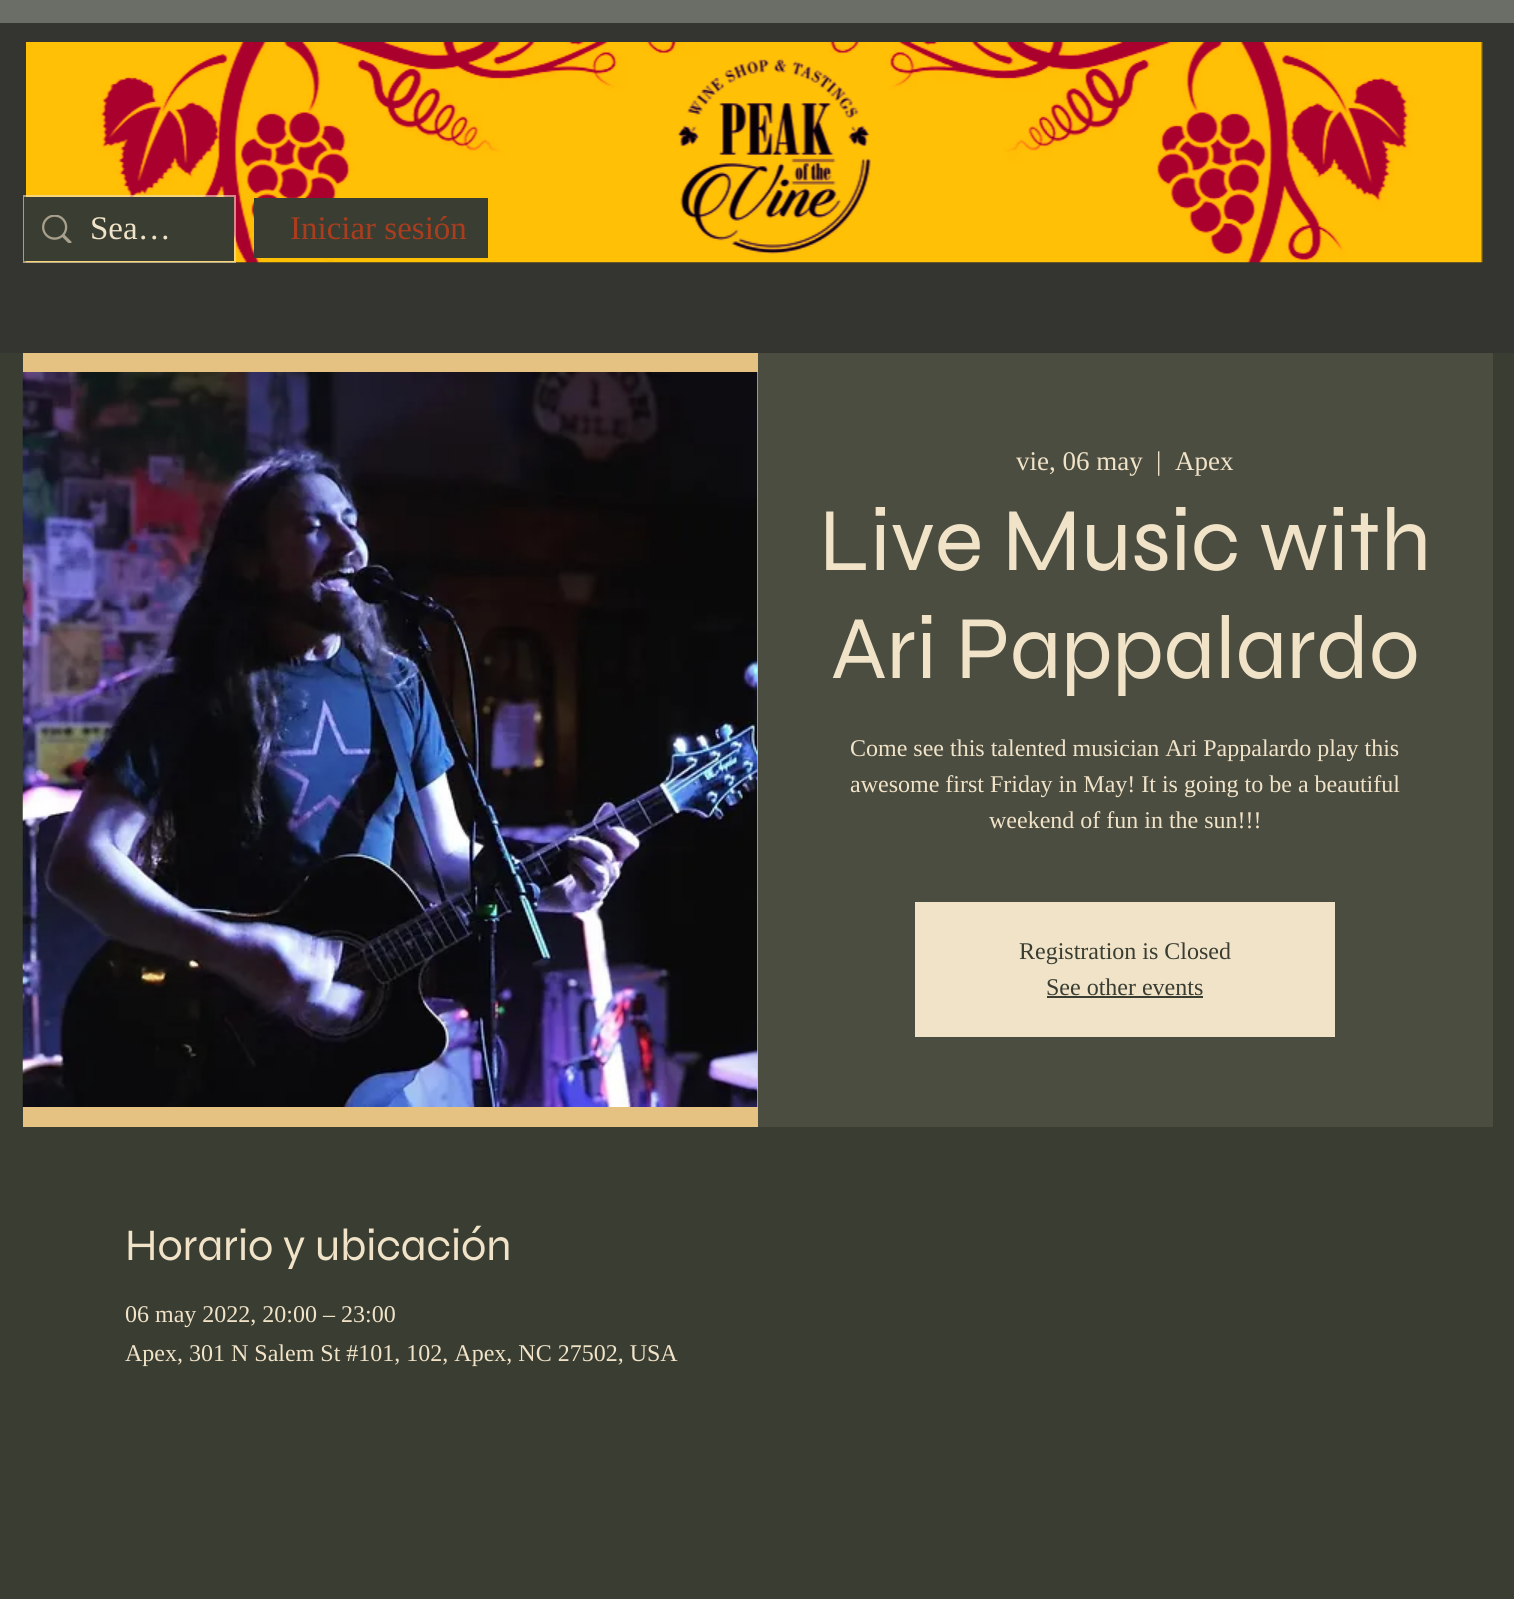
import math
import cairo

surface = cairo.ImageSurface(cairo.FORMAT_RGB24, 1514, 1599)
ctx = cairo.Context(surface)
options = cairo.FontOptions()
options.set_hint_metrics(cairo.HINT_METRICS_OFF)
options.set_hint_style(cairo.HINT_STYLE_NONE)
ctx.set_font_options(options)
ctx.set_miter_limit(4)


def picture(path, x, y, w, h):
    ctx.save()
    ctx.set_source_surface(cairo.ImageSurface.create_from_png(path), x, y)
    ctx.rectangle(x, y, w, h)
    ctx.fill()
    ctx.restore()


ctx.set_source_rgb(0.224, 0.239, 0.196)
ctx.paint()
ctx.set_source_rgb(0.42, 0.431, 0.404)
ctx.rectangle(0, 0, 1514, 23)
ctx.fill()
ctx.set_source_rgb(0.204, 0.208, 0.188)
ctx.rectangle(0, 23, 1514, 330)
ctx.fill()
picture("img1.png", 26, 42, 1457, 221)
ctx.rectangle(24, 196, 211, 66)
ctx.set_source_rgba(0.945, 0.89, 0.784, 0.6)
ctx.stroke()
ctx.set_source_rgb(0.224, 0.239, 0.196)
ctx.rectangle(24, 197, 210, 64)
ctx.fill()
picture("img2.png", 42, 215, 30, 28)
ctx.select_font_face("Liberation Serif")
ctx.set_font_size(33)
ctx.set_source_rgb(0.945, 0.89, 0.784)
ctx.move_to(90, 239)
ctx.show_text("Sea…")
ctx.set_source_rgb(0.224, 0.239, 0.196)
ctx.rectangle(254, 198, 234, 60)
ctx.fill()
ctx.set_source_rgb(0.667, 0.239, 0.114)
ctx.move_to(290, 239)
ctx.show_text("Iniciar sesión")
picture("img3.png", 677, 58, 194, 197)
ctx.set_source_rgb(0.898, 0.761, 0.51)
ctx.rectangle(23, 353, 735, 774)
ctx.fill()
picture("img4.png", 22, 372, 736, 735)
ctx.set_source_rgb(0.294, 0.302, 0.255)
ctx.rectangle(758, 353, 735, 774)
ctx.fill()
ctx.set_font_size(27)
ctx.set_source_rgb(0.945, 0.89, 0.784)
ctx.move_to(1016, 470)
ctx.show_text("vie, 06 may")
ctx.move_to(1156, 470)
ctx.show_text("|")
ctx.move_to(1175, 470)
ctx.show_text("Apex")
ctx.select_font_face("Syne")
ctx.set_font_size(90)
ctx.move_to(819, 570)
ctx.show_text("Live Music with")
ctx.move_to(831, 678)
ctx.show_text("Ari Pappalardo")
ctx.select_font_face("Liberation Serif")
ctx.set_font_size(24)
ctx.move_to(850, 756)
ctx.show_text("Come see this talented musician Ari Pappalardo play this")
ctx.move_to(850, 792)
ctx.show_text("awesome first Friday in May! It is going to be a beautiful")
ctx.move_to(989, 828)
ctx.show_text("weekend of fun in the sun!!!")
ctx.rectangle(915, 902, 420, 135)
ctx.fill()
ctx.set_source_rgb(0.224, 0.239, 0.196)
ctx.move_to(1019, 959)
ctx.show_text("Registration is Closed")
ctx.move_to(1046, 995)
ctx.show_text("See other events")
ctx.rectangle(1047, 996, 156, 2)
ctx.fill()
ctx.select_font_face("Syne")
ctx.set_font_size(45)
ctx.set_source_rgb(0.945, 0.89, 0.784)
ctx.move_to(125, 1260)
ctx.show_text("Horario y ubicación")
ctx.select_font_face("Liberation Serif")
ctx.set_font_size(24)
ctx.move_to(125, 1322)
ctx.show_text("06 may 2022, 20:00 – 23:00")
ctx.move_to(125, 1361)
ctx.show_text("Apex, 301 N Salem St #101, 102, Apex, NC 27502, USA")
surface.write_to_png("page.png")
